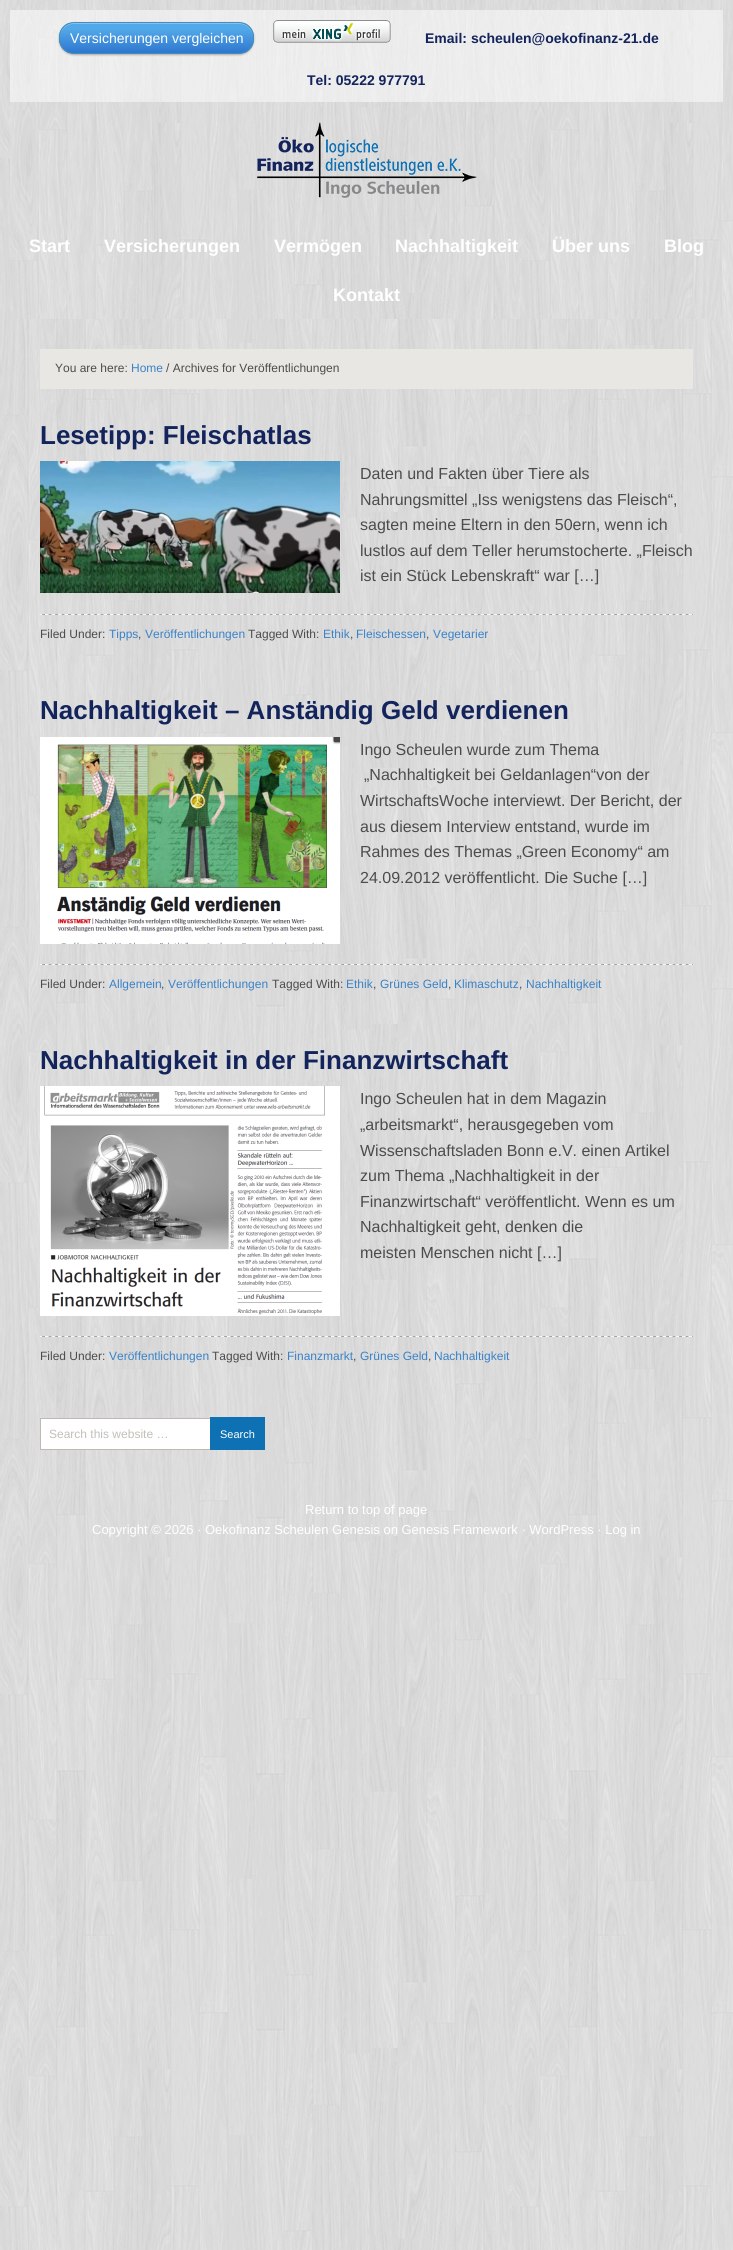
import math
import cairo

surface = cairo.ImageSurface(cairo.FORMAT_RGB24, 733, 2250)
ctx = cairo.Context(surface)
options = cairo.FontOptions()
options.set_hint_metrics(cairo.HINT_METRICS_OFF)
options.set_hint_style(cairo.HINT_STYLE_NONE)
ctx.set_font_options(options)
ctx.set_miter_limit(4)


def round_rect(x, y, w, h, r):
    ctx.new_sub_path()
    for i, (u, v) in enumerate([(x + w - r, y + h - r), (x + r, y + h - r), (x + r, y + r), (x + w - r, y + r)]):
        ctx.arc(u, v, r, i * math.pi / 2, (i + 1) * math.pi / 2)
    ctx.close_path()


def shadow(x, y, w, h, r, blur, alpha):
    ctx.push_group_with_content(cairo.CONTENT_ALPHA)
    ctx.set_operator(cairo.OPERATOR_SOURCE)
    for i in range(15, -16, -2):
        e = blur * i / 6
        if min(w, h) + 2 * e > 0:
            ctx.set_source_rgba(0, 0, 0, alpha * math.erfc((i - 1) / 8.5) / 2)
            round_rect(x - e, y - e, w + 2 * e, h + 2 * e, max(0, min(r + e + blur * .6, min(w, h) / 2 + e)))
            ctx.fill()
    ctx.mask(ctx.pop_group())


def picture(path, x, y, w, h):
    ctx.save()
    ctx.set_source_surface(cairo.ImageSurface.create_from_png(path), x, y)
    ctx.rectangle(x, y, w, h)
    ctx.fill()
    ctx.restore()


ctx.set_source_rgb(1, 1, 1)
ctx.paint()
picture("img1.png", 0, 0, 733, 2250)
picture("img2.png", 10, 10, 713, 92)
ctx.set_source_rgb(0, 0, 0)
shadow(59, 23, 195, 32, 15, 1, 0.29)
ctx.save()
round_rect(59, 22, 195, 32, 15)
ctx.clip()
gradient = cairo.LinearGradient(60, 23, 60, 53)
gradient.add_color_stop_rgba(0.2, 0.322, 0.659, 0.91, 1)
gradient.add_color_stop_rgba(1, 0.18, 0.463, 0.812, 1)
ctx.set_source(gradient)
ctx.rectangle(59, 23, 195, 30)
ctx.fill()
ctx.restore()
ctx.set_source_rgba(1, 1, 1, 0.3)
ctx.new_path()
ctx.move_to(74, 24)
ctx.line_to(239, 24)
ctx.curve_to(247, 24, 253, 30, 253, 38)
ctx.curve_to(253, 16, 224, 23, 212, 23)
ctx.line_to(102, 23)
ctx.curve_to(89, 23, 60, 16, 60, 38)
ctx.curve_to(60, 30, 66, 24, 74, 24)
ctx.close_path()
ctx.fill()
round_rect(59.5, 22.5, 194, 31, 14.5)
ctx.set_source_rgb(0.255, 0.561, 0.737)
ctx.set_line_width(1)
ctx.stroke()
ctx.select_font_face("Liberation Sans")
ctx.set_font_size(14)
ctx.set_source_rgb(1, 1, 1)
ctx.move_to(70, 43)
ctx.show_text("Versicherungen vergleichen")
picture("img3.png", 273, 20, 118, 23)
ctx.select_font_face("Liberation Sans", cairo.FONT_SLANT_NORMAL, cairo.FONT_WEIGHT_BOLD)
ctx.set_source_rgb(0.078, 0.141, 0.361)
ctx.move_to(425, 43)
ctx.show_text("Email: scheulen@oekofinanz-21.de")
ctx.move_to(307, 85)
ctx.show_text("Tel: 05222 977791")
picture("img4.png", 10, 102, 713, 217)
picture("img5.png", 257, 122, 220, 76)
ctx.set_font_size(18)
ctx.set_source_rgb(1, 1, 1)
ctx.move_to(29, 252)
ctx.show_text("Start")
ctx.move_to(104, 252)
ctx.show_text("Versicherungen")
ctx.move_to(274, 252)
ctx.show_text("Vermögen")
ctx.move_to(395, 252)
ctx.show_text("Nachhaltigkeit")
ctx.move_to(552, 252)
ctx.show_text("Über uns")
ctx.move_to(664, 252)
ctx.show_text("Blog")
ctx.move_to(333, 301)
ctx.show_text("Kontakt")
ctx.set_source_rgb(0.91, 0.906, 0.89)
ctx.rectangle(40, 349, 653, 40)
ctx.fill()
ctx.select_font_face("Liberation Sans")
ctx.set_font_size(12)
ctx.set_source_rgb(0.298, 0.298, 0.298)
ctx.move_to(55, 372)
ctx.show_text("You are here:")
ctx.set_source_rgb(0.231, 0.51, 0.78)
ctx.move_to(131, 372)
ctx.show_text("Home")
ctx.set_source_rgb(0.298, 0.298, 0.298)
ctx.move_to(166, 372)
ctx.show_text("/ Archives for Veröffentlichungen")
ctx.select_font_face("Liberation Sans", cairo.FONT_SLANT_NORMAL, cairo.FONT_WEIGHT_BOLD)
ctx.set_font_size(26)
ctx.set_source_rgb(0.078, 0.141, 0.361)
ctx.move_to(40, 444)
ctx.show_text("Lesetipp: Fleischatlas")
picture("img6.png", 40, 461, 300, 132)
ctx.select_font_face("Liberation Sans")
ctx.set_font_size(16)
ctx.set_source_rgb(0.298, 0.298, 0.298)
ctx.move_to(360, 479)
ctx.show_text("Daten und Fakten über Tiere als")
ctx.move_to(360, 505)
ctx.show_text("Nahrungsmittel „Iss wenigstens das Fleisch“,")
ctx.move_to(360, 530)
ctx.show_text("sagten meine Eltern in den 50ern, wenn ich")
ctx.move_to(360, 556)
ctx.show_text("lustlos auf dem Teller herumstocherte. „Fleisch")
ctx.move_to(360, 581)
ctx.show_text("ist ein Stück Lebenskraft“ war […]")
picture("img7.png", 40, 614, 653, 1)
ctx.set_font_size(12)
ctx.move_to(40, 638)
ctx.show_text("Filed Under:")
ctx.set_source_rgb(0.231, 0.51, 0.78)
ctx.move_to(109, 638)
ctx.show_text("Tipps")
ctx.set_source_rgb(0.298, 0.298, 0.298)
ctx.move_to(138, 638)
ctx.show_text(",")
ctx.set_source_rgb(0.231, 0.51, 0.78)
ctx.move_to(145, 638)
ctx.show_text("Veröffentlichungen")
ctx.set_source_rgb(0.298, 0.298, 0.298)
ctx.move_to(248, 638)
ctx.show_text("Tagged With:")
ctx.set_source_rgb(0.231, 0.51, 0.78)
ctx.move_to(323, 638)
ctx.show_text("Ethik")
ctx.set_source_rgb(0.298, 0.298, 0.298)
ctx.move_to(350, 638)
ctx.show_text(",")
ctx.set_source_rgb(0.231, 0.51, 0.78)
ctx.move_to(356, 638)
ctx.show_text("Fleischessen")
ctx.set_source_rgb(0.298, 0.298, 0.298)
ctx.move_to(426, 638)
ctx.show_text(",")
ctx.set_source_rgb(0.231, 0.51, 0.78)
ctx.move_to(433, 638)
ctx.show_text("Vegetarier")
ctx.select_font_face("Liberation Sans", cairo.FONT_SLANT_NORMAL, cairo.FONT_WEIGHT_BOLD)
ctx.set_font_size(26)
ctx.set_source_rgb(0.078, 0.141, 0.361)
ctx.move_to(40, 719)
ctx.show_text("Nachhaltigkeit – Anständig Geld verdienen")
picture("img8.png", 40, 737, 300, 207)
ctx.select_font_face("Liberation Sans")
ctx.set_font_size(16)
ctx.set_source_rgb(0.298, 0.298, 0.298)
ctx.move_to(360, 755)
ctx.show_text("Ingo Scheulen wurde zum Thema")
ctx.move_to(364, 780)
ctx.show_text("„Nachhaltigkeit bei Geldanlagen“von der")
ctx.move_to(360, 806)
ctx.show_text("WirtschaftsWoche interviewt. Der Bericht, der")
ctx.move_to(360, 832)
ctx.show_text("aus diesem Interview entstand, wurde im")
ctx.move_to(360, 857)
ctx.show_text("Rahmes des Themas „Green Economy“ am")
ctx.move_to(360, 883)
ctx.show_text("24.09.2012 veröffentlicht. Die Suche […]")
picture("img7.png", 40, 964, 653, 1)
ctx.set_font_size(12)
ctx.move_to(40, 988)
ctx.show_text("Filed Under:")
ctx.set_source_rgb(0.231, 0.51, 0.78)
ctx.move_to(109, 988)
ctx.show_text("Allgemein")
ctx.set_source_rgb(0.298, 0.298, 0.298)
ctx.move_to(161, 988)
ctx.show_text(",")
ctx.set_source_rgb(0.231, 0.51, 0.78)
ctx.move_to(168, 988)
ctx.show_text("Veröffentlichungen")
ctx.set_source_rgb(0.298, 0.298, 0.298)
ctx.move_to(272, 988)
ctx.show_text("Tagged With:")
ctx.set_source_rgb(0.231, 0.51, 0.78)
ctx.move_to(346, 988)
ctx.show_text("Ethik")
ctx.set_source_rgb(0.298, 0.298, 0.298)
ctx.move_to(373, 988)
ctx.show_text(",")
ctx.set_source_rgb(0.231, 0.51, 0.78)
ctx.move_to(380, 988)
ctx.show_text("Grünes Geld")
ctx.set_source_rgb(0.298, 0.298, 0.298)
ctx.move_to(448, 988)
ctx.show_text(",")
ctx.set_source_rgb(0.231, 0.51, 0.78)
ctx.move_to(454, 988)
ctx.show_text("Klimaschutz")
ctx.set_source_rgb(0.298, 0.298, 0.298)
ctx.move_to(519, 988)
ctx.show_text(",")
ctx.set_source_rgb(0.231, 0.51, 0.78)
ctx.move_to(526, 988)
ctx.show_text("Nachhaltigkeit")
ctx.select_font_face("Liberation Sans", cairo.FONT_SLANT_NORMAL, cairo.FONT_WEIGHT_BOLD)
ctx.set_font_size(26)
ctx.set_source_rgb(0.078, 0.141, 0.361)
ctx.move_to(40, 1069)
ctx.show_text("Nachhaltigkeit in der Finanzwirtschaft")
picture("img9.png", 40, 1086, 300, 230)
ctx.select_font_face("Liberation Sans")
ctx.set_font_size(16)
ctx.set_source_rgb(0.298, 0.298, 0.298)
ctx.move_to(360, 1104)
ctx.show_text("Ingo Scheulen hat in dem Magazin")
ctx.move_to(360, 1130)
ctx.show_text("„arbeitsmarkt“, herausgegeben vom")
ctx.move_to(360, 1156)
ctx.show_text("Wissenschaftsladen Bonn e.V. einen Artikel")
ctx.move_to(360, 1181)
ctx.show_text("zum Thema „Nachhaltigkeit in der")
ctx.move_to(360, 1207)
ctx.show_text("Finanzwirtschaft“ veröffentlicht. Wenn es um")
ctx.move_to(360, 1232)
ctx.show_text("Nachhaltigkeit geht, denken die")
ctx.move_to(360, 1258)
ctx.show_text("meisten Menschen nicht […]")
picture("img7.png", 40, 1336, 653, 1)
ctx.set_font_size(12)
ctx.move_to(40, 1360)
ctx.show_text("Filed Under:")
ctx.set_source_rgb(0.231, 0.51, 0.78)
ctx.move_to(109, 1360)
ctx.show_text("Veröffentlichungen")
ctx.set_source_rgb(0.298, 0.298, 0.298)
ctx.move_to(212, 1360)
ctx.show_text("Tagged With:")
ctx.set_source_rgb(0.231, 0.51, 0.78)
ctx.move_to(287, 1360)
ctx.show_text("Finanzmarkt")
ctx.set_source_rgb(0.298, 0.298, 0.298)
ctx.move_to(353, 1360)
ctx.show_text(",")
ctx.set_source_rgb(0.231, 0.51, 0.78)
ctx.move_to(360, 1360)
ctx.show_text("Grünes Geld")
ctx.set_source_rgb(0.298, 0.298, 0.298)
ctx.move_to(428, 1360)
ctx.show_text(",")
ctx.set_source_rgb(0.231, 0.51, 0.78)
ctx.move_to(434, 1360)
ctx.show_text("Nachhaltigkeit")
ctx.set_source_rgb(1, 1, 1)
ctx.rectangle(41, 1419, 169, 30)
ctx.fill()
ctx.set_source_rgb(0.753, 0.725, 0.686)
ctx.rectangle(40, 1418, 177, 1)
ctx.fill()
ctx.rectangle(40, 1449, 177, 1)
ctx.fill()
ctx.rectangle(40, 1418, 1, 32)
ctx.fill()
ctx.set_source_rgb(0.761, 0.749, 0.722)
ctx.move_to(49, 1438)
ctx.show_text("Search this website …")
ctx.set_source_rgb(0.055, 0.443, 0.706)
ctx.rectangle(210, 1417, 55, 33)
ctx.fill()
ctx.set_font_size(11)
ctx.set_source_rgb(1, 1, 1)
ctx.move_to(220, 1438)
ctx.show_text("Search")
ctx.set_font_size(13)
ctx.move_to(305, 1514)
ctx.show_text("Return to top of page")
ctx.move_to(92, 1534)
ctx.show_text("Copyright © 2026 · Oekofinanz Scheulen Genesis on Genesis Framework · WordPress · Log in")
surface.write_to_png("page.png")
